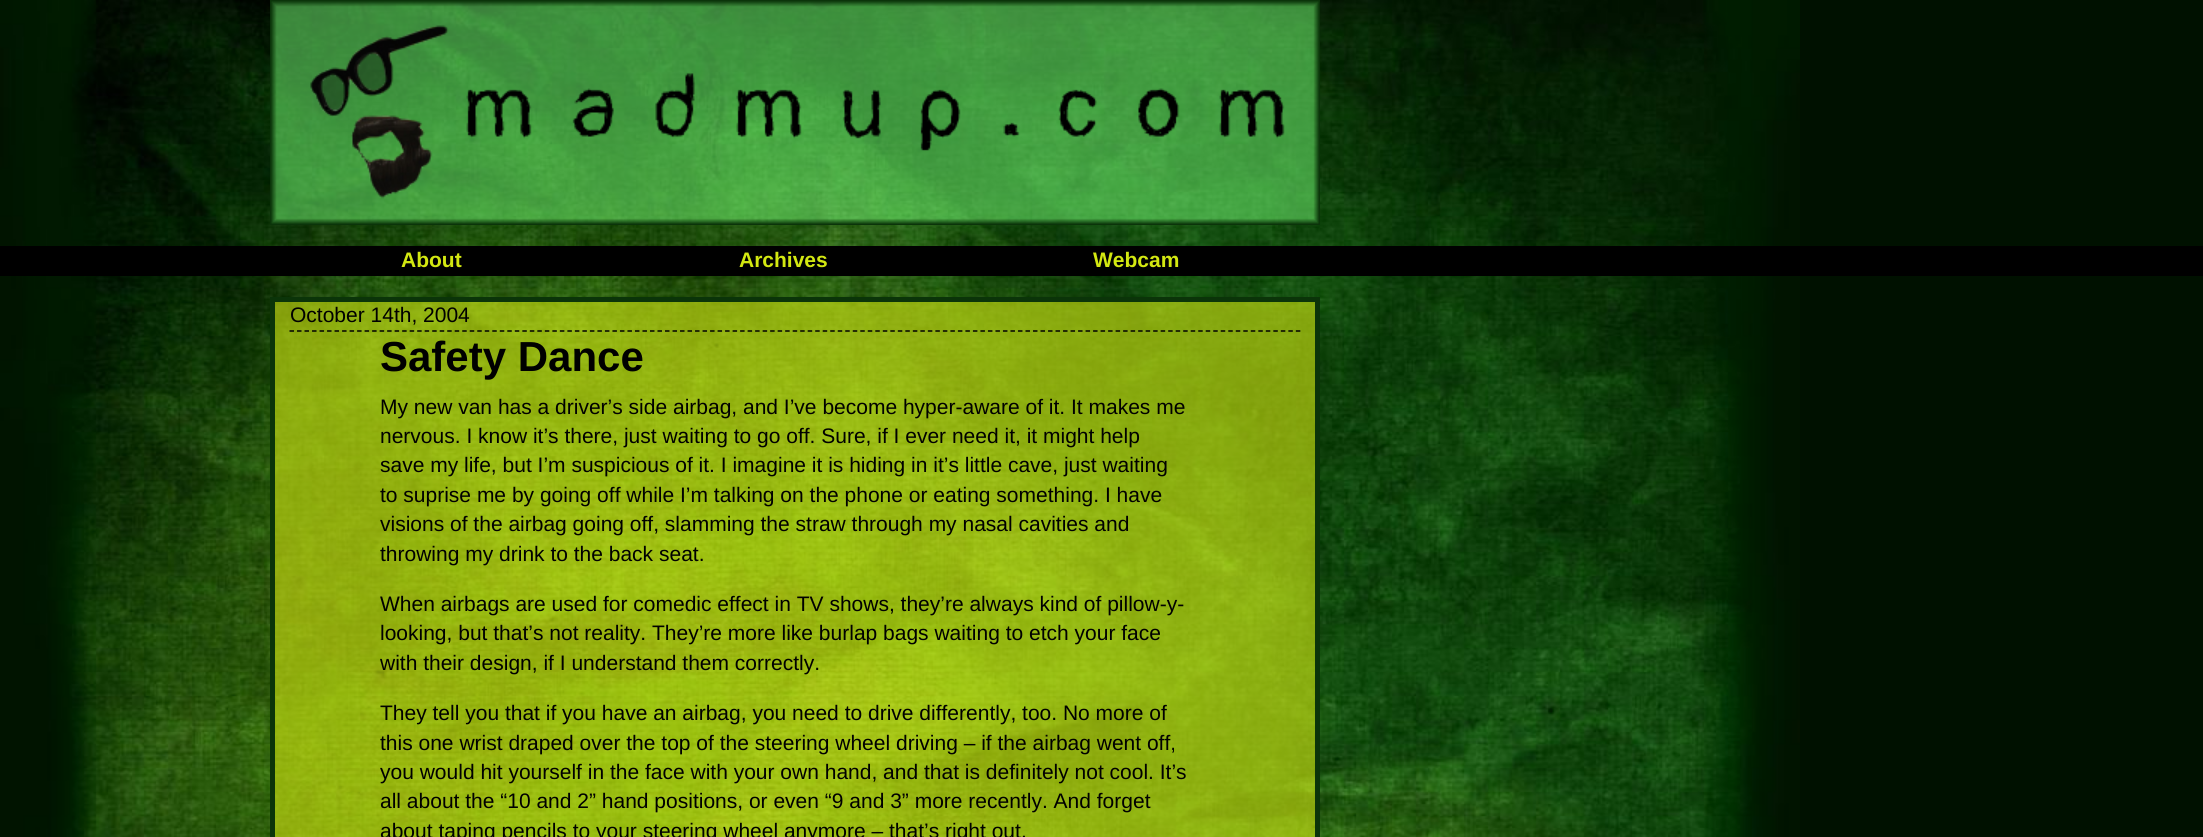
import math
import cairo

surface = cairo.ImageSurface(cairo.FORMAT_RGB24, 2203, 837)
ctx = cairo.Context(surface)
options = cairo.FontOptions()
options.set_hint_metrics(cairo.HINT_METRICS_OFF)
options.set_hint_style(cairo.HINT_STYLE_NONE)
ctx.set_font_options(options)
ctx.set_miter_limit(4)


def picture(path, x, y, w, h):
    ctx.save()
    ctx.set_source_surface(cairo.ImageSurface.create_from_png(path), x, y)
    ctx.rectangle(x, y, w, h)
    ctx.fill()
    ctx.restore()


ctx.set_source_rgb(0, 0.067, 0)
ctx.paint()
picture("img1.png", 0, 0, 1800, 837)
ctx.set_source_rgba(0.471, 1, 0.471, 0.5)
ctx.rectangle(271, 1, 1048, 223)
ctx.fill()
picture("img2.png", 270, 0, 1050, 225)
ctx.set_source_rgb(0, 0, 0)
ctx.rectangle(0, 246, 2203, 30)
ctx.fill()
ctx.select_font_face("Liberation Sans", cairo.FONT_SLANT_NORMAL, cairo.FONT_WEIGHT_BOLD)
ctx.set_font_size(21)
ctx.set_source_rgb(0.827, 0.91, 0.067)
ctx.move_to(401, 267)
ctx.show_text("About")
ctx.move_to(739, 267)
ctx.show_text("Archives")
ctx.move_to(1093, 267)
ctx.show_text("Webcam")
ctx.set_source_rgba(0.827, 0.91, 0.067, 0.6)
ctx.rectangle(272.5, 299.5, 1045, 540)
ctx.fill_preserve()
ctx.set_source_rgb(0.043, 0.204, 0.039)
ctx.set_line_width(5)
ctx.stroke()
ctx.new_path()
ctx.move_to(289.5, 331)
ctx.line_to(1300.5, 331)
ctx.set_source_rgb(0, 0, 0)
ctx.set_line_width(1.5)
ctx.set_dash([4.5, 3.01])
ctx.stroke()
ctx.select_font_face("Liberation Sans")
ctx.move_to(290, 322)
ctx.show_text("October 14th, 2004")
ctx.select_font_face("Liberation Sans", cairo.FONT_SLANT_NORMAL, cairo.FONT_WEIGHT_BOLD)
ctx.set_font_size(42)
ctx.move_to(380, 371)
ctx.show_text("Safety Dance")
ctx.select_font_face("Liberation Sans")
ctx.set_font_size(21)
ctx.move_to(380, 414)
ctx.show_text("My new van has a driver’s side airbag, and I’ve become hyper-aware of it. It makes me")
ctx.move_to(380, 443)
ctx.show_text("nervous. I know it’s there, just waiting to go off. Sure, if I ever need it, it might help")
ctx.move_to(380, 472)
ctx.show_text("save my life, but I’m suspicious of it. I imagine it is hiding in it’s little cave, just waiting")
ctx.move_to(380, 502)
ctx.show_text("to suprise me by going off while I’m talking on the phone or eating something. I have")
ctx.move_to(380, 531)
ctx.show_text("visions of the airbag going off, slamming the straw through my nasal cavities and")
ctx.move_to(380, 561)
ctx.show_text("throwing my drink to the back seat.")
ctx.move_to(380, 611)
ctx.show_text("When airbags are used for comedic effect in TV shows, they’re always kind of pillow-y-")
ctx.move_to(380, 640)
ctx.show_text("looking, but that’s not reality. They’re more like burlap bags waiting to etch your face")
ctx.move_to(380, 670)
ctx.show_text("with their design, if I understand them correctly.")
ctx.move_to(380, 720)
ctx.show_text("They tell you that if you have an airbag, you need to drive differently, too. No more of")
ctx.move_to(380, 750)
ctx.show_text("this one wrist draped over the top of the steering wheel driving – if the airbag went off,")
ctx.move_to(380, 779)
ctx.show_text("you would hit yourself in the face with your own hand, and that is definitely not cool. It’s")
ctx.move_to(380, 808)
ctx.show_text("all about the “10 and 2” hand positions, or even “9 and 3” more recently. And forget")
ctx.move_to(380, 838)
ctx.show_text("about taping pencils to your steering wheel anymore – that’s right out.")
surface.write_to_png("page.png")
